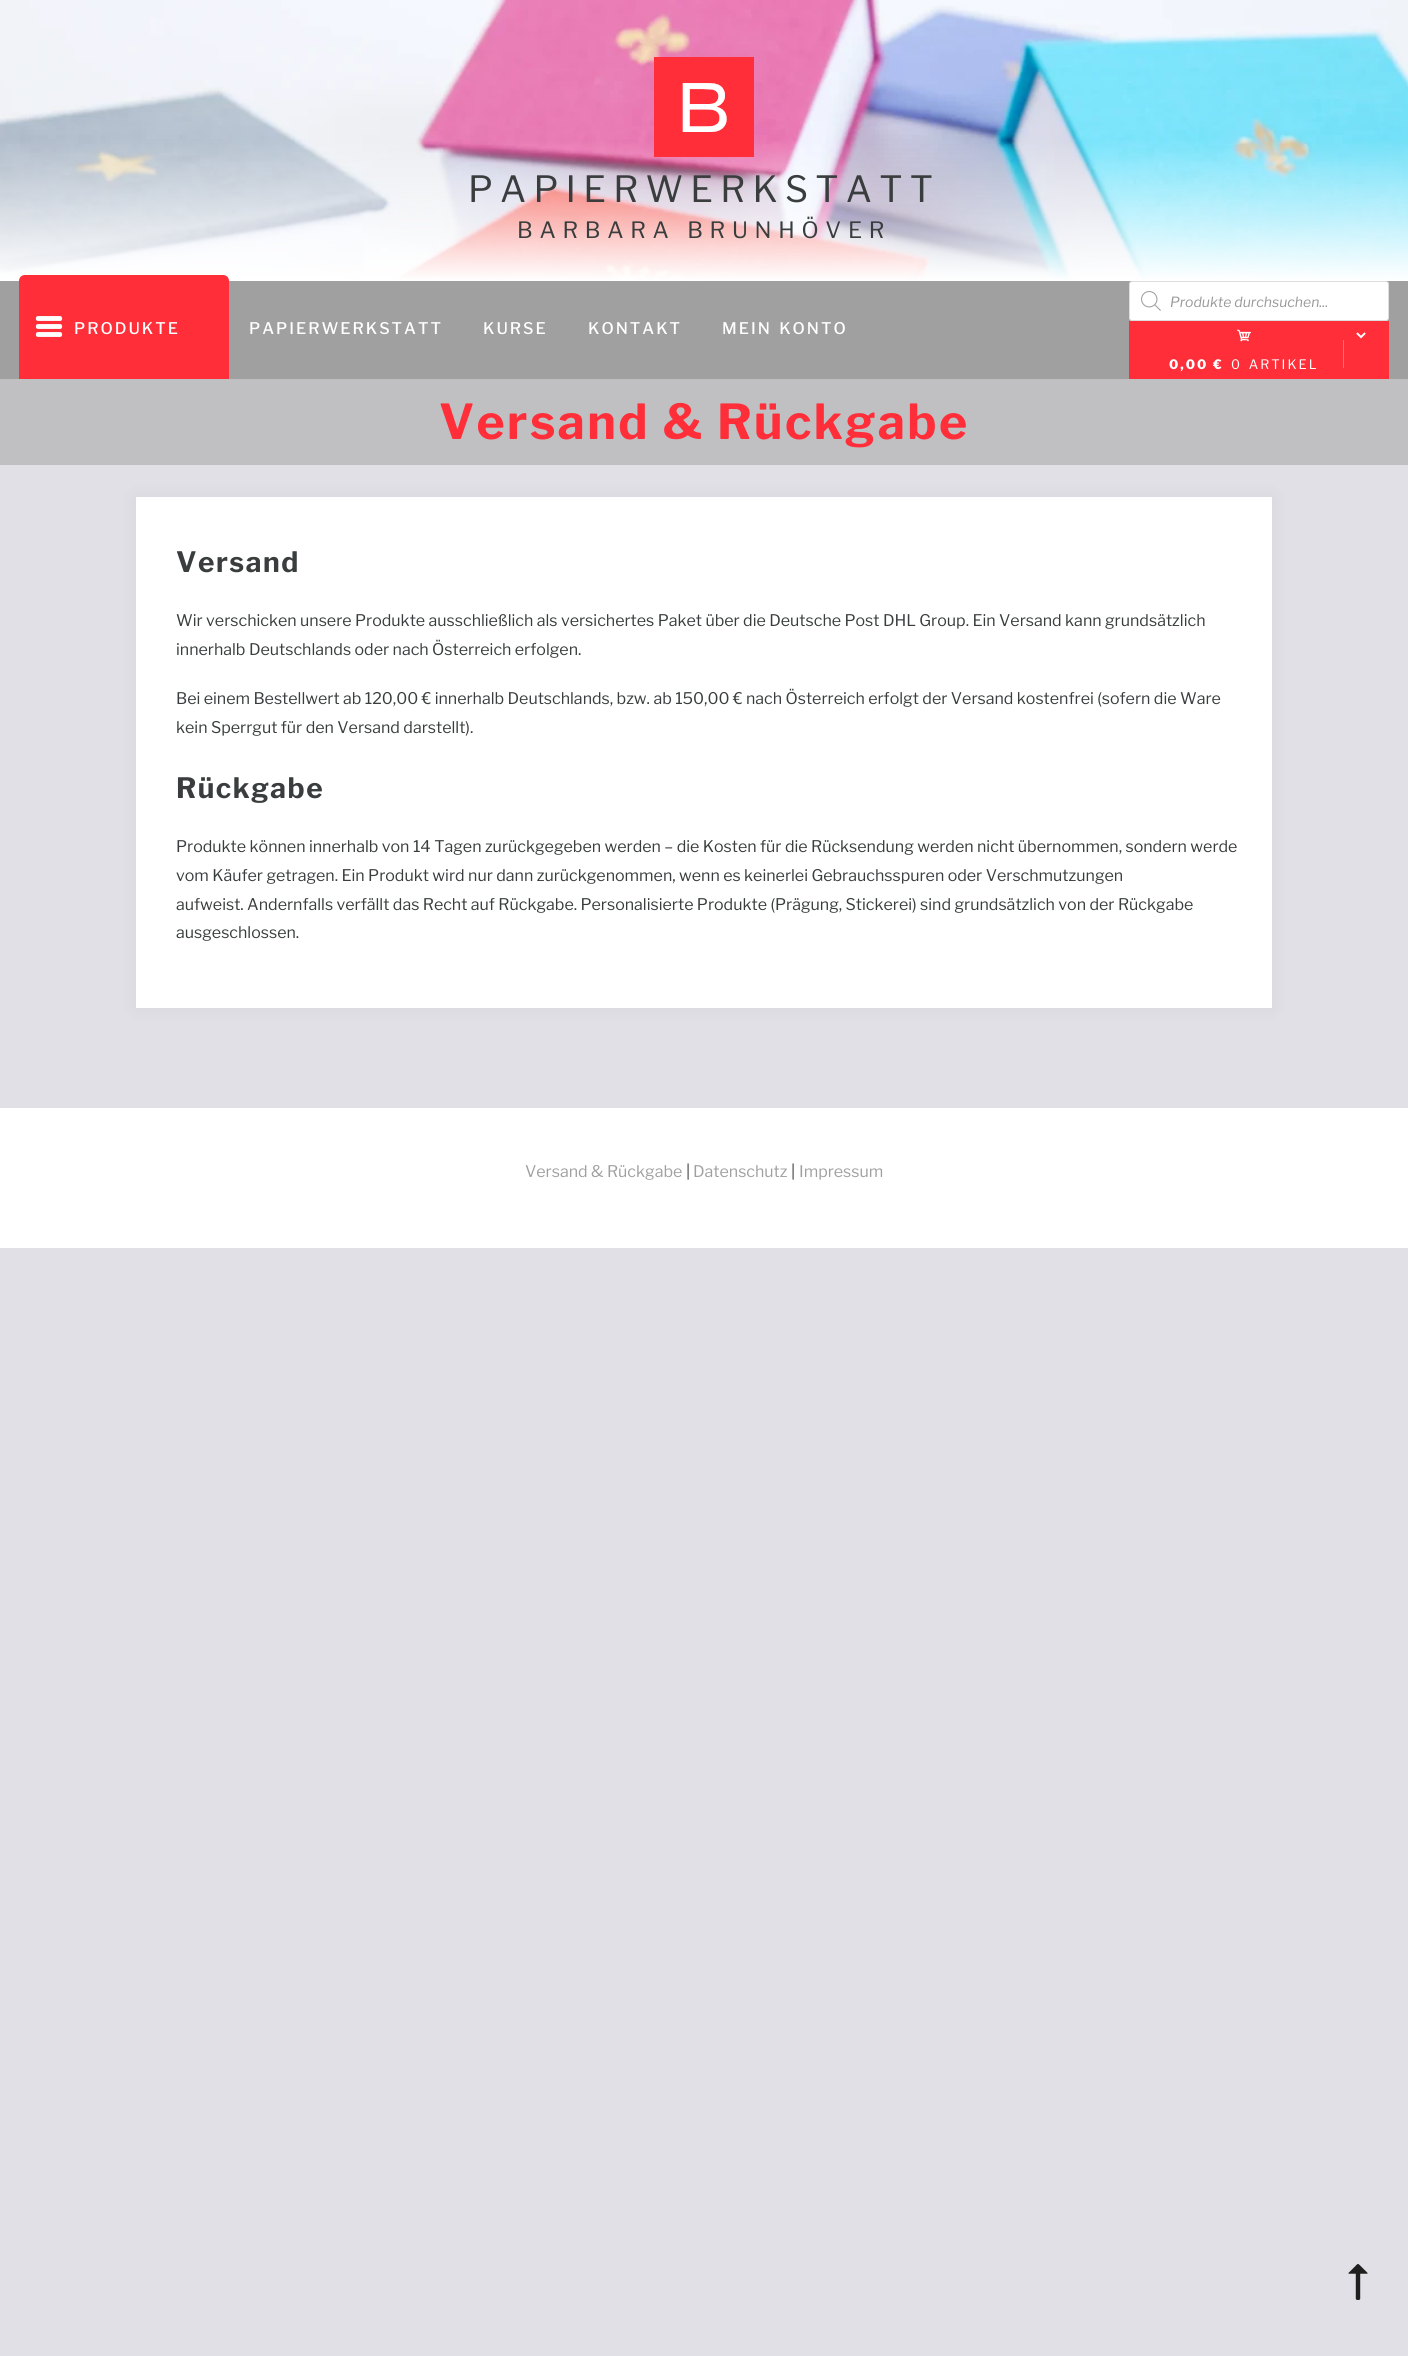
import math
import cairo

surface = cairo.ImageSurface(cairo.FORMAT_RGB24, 1408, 2356)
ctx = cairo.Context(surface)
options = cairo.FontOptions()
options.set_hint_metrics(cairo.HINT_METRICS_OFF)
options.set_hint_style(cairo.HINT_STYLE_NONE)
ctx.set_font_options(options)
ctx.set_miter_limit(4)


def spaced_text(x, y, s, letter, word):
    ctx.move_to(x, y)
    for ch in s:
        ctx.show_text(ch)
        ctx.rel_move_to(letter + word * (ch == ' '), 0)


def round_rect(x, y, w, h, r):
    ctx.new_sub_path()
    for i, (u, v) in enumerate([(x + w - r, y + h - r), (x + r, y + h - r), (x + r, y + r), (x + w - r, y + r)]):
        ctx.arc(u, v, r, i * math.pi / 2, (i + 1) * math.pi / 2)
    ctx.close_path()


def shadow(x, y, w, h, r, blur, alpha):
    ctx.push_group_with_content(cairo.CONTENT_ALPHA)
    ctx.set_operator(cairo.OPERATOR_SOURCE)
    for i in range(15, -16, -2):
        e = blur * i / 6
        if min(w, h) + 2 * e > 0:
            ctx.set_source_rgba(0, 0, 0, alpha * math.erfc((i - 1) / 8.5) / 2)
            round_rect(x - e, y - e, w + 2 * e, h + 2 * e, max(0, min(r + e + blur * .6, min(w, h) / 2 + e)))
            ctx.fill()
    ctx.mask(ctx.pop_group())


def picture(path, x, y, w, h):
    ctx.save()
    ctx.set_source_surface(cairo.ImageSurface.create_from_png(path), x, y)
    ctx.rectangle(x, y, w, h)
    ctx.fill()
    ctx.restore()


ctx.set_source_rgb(0.882, 0.878, 0.902)
ctx.paint()
picture("img1.png", 0, 0, 1408, 281)
picture("img2.png", 654, 57, 100, 100)
ctx.select_font_face("Libre Franklin")
ctx.set_font_size(36)
ctx.set_source_rgb(0.224, 0.239, 0.239)
spaced_text(468, 202, "PAPIERWERKSTATT", 7.25, 0)
ctx.set_font_size(22.4)
spaced_text(517, 238, "BARBARA BRUNHÖVER", 6.75, 0)
ctx.set_source_rgb(0.627, 0.627, 0.627)
ctx.rectangle(0, 281, 1408, 98)
ctx.fill()
ctx.set_source_rgb(1, 1, 1)
round_rect(1129.5, 281.5, 259, 39, 2.5)
ctx.fill_preserve()
ctx.set_source_rgb(0.867, 0.867, 0.867)
ctx.set_line_width(1)
ctx.stroke()
picture("img3.png", 1141, 291, 20, 20)
ctx.select_font_face("Libre Franklin", cairo.FONT_SLANT_ITALIC)
ctx.set_font_size(14)
ctx.set_source_rgb(0.6, 0.6, 0.6)
ctx.move_to(1170, 307)
ctx.show_text("Produkte durchsuchen...")
ctx.set_source_rgb(1, 0.18, 0.22)
ctx.rectangle(19, 281, 210, 98)
ctx.fill()
ctx.new_path()
ctx.move_to(25, 275)
ctx.line_to(223, 275)
ctx.curve_to(226.5, 275, 229, 277.5, 229, 281)
ctx.line_to(19, 281)
ctx.curve_to(19, 277.5, 21.5, 275, 25, 275)
ctx.close_path()
ctx.fill()
picture("img4.png", 35, 316, 28, 21)
ctx.select_font_face("Libre Franklin Medium")
ctx.set_font_size(16)
ctx.set_source_rgb(1, 1, 1)
spaced_text(74, 334, "PRODUKTE", 2, 0)
spaced_text(249, 334, "PAPIERWERKSTATT", 2, 0)
spaced_text(483, 334, "KURSE", 2, 0)
spaced_text(588, 334, "KONTAKT", 2, 0)
spaced_text(722, 334, "MEIN KONTO", 2, 2)
ctx.set_source_rgb(1, 0.18, 0.22)
ctx.rectangle(1129, 321, 260, 58)
ctx.fill()
picture("img5.png", 1237, 329, 14, 13)
picture("img6.png", 1356, 332, 10, 7)
ctx.select_font_face("Libre Franklin ExtraBold")
ctx.set_font_size(13)
ctx.set_source_rgb(1, 1, 1)
spaced_text(1169, 369, "0,00 €", 2, 0)
ctx.select_font_face("Libre Franklin")
spaced_text(1231, 369, "0 ARTIKEL", 2, 2)
ctx.set_source_rgb(1, 0.427, 0.455)
ctx.rectangle(1343, 340, 1, 28)
ctx.fill()
ctx.set_source_rgba(0.627, 0.627, 0.627, 0.5)
ctx.rectangle(0, 379, 1408, 86)
ctx.fill()
ctx.select_font_face("Libre Franklin", cairo.FONT_SLANT_NORMAL, cairo.FONT_WEIGHT_BOLD)
ctx.set_font_size(48)
ctx.set_source_rgb(1, 0.18, 0.22)
spaced_text(439, 439, "Versand & Rückgabe", 2.4, 0)
ctx.set_source_rgb(0, 0, 0)
shadow(136, 497, 1136, 511, 0, 9, 0.05)
ctx.set_source_rgb(1, 1, 1)
ctx.rectangle(136, 497, 1136, 511)
ctx.fill()
ctx.set_font_size(28)
ctx.set_source_rgb(0.224, 0.239, 0.239)
spaced_text(176, 572, "Versand", 1.5, 0)
ctx.select_font_face("Libre Franklin")
ctx.set_font_size(16)
ctx.move_to(176, 626)
ctx.show_text("Wir verschicken unsere Produkte ausschließlich als versichertes Paket über die Deutsche Post DHL Group. Ein Versand kann grundsätzlich")
ctx.move_to(176, 655)
ctx.show_text("innerhalb Deutschlands oder nach Österreich erfolgen.")
ctx.move_to(176, 704)
ctx.show_text("Bei einem Bestellwert ab 120,00 € innerhalb Deutschlands, bzw. ab 150,00 € nach Österreich erfolgt der Versand kostenfrei (sofern die Ware")
ctx.move_to(176, 733)
ctx.show_text("kein Sperrgut für den Versand darstellt).")
ctx.select_font_face("Libre Franklin", cairo.FONT_SLANT_NORMAL, cairo.FONT_WEIGHT_BOLD)
ctx.set_font_size(28)
spaced_text(176, 798, "Rückgabe", 1.5, 0)
ctx.select_font_face("Libre Franklin")
ctx.set_font_size(16)
ctx.move_to(176, 852)
ctx.show_text("Produkte können innerhalb von 14 Tagen zurückgegeben werden – die Kosten für die Rücksendung werden nicht übernommen, sondern werde")
ctx.move_to(176, 881)
ctx.show_text("vom Käufer getragen. Ein Produkt wird nur dann zurückgenommen, wenn es keinerlei Gebrauchsspuren oder Verschmutzungen")
ctx.move_to(176, 910)
ctx.show_text("aufweist. Andernfalls verfällt das Recht auf Rückgabe. Personalisierte Produkte (Prägung, Stickerei) sind grundsätzlich von der Rückgabe")
ctx.move_to(176, 938)
ctx.show_text("ausgeschlossen.")
ctx.set_source_rgb(1, 1, 1)
ctx.rectangle(0, 1108, 1408, 140)
ctx.fill()
ctx.set_source_rgb(0.627, 0.627, 0.627)
ctx.move_to(525, 1177)
ctx.show_text("Versand & Rückgabe")
ctx.set_source_rgb(0.224, 0.239, 0.239)
ctx.move_to(686, 1177)
ctx.show_text("|")
ctx.set_source_rgb(0.627, 0.627, 0.627)
ctx.move_to(693, 1177)
ctx.show_text("Datenschutz")
ctx.set_source_rgb(0.224, 0.239, 0.239)
ctx.move_to(791, 1177)
ctx.show_text("|")
ctx.set_source_rgb(0.627, 0.627, 0.627)
ctx.move_to(799, 1177)
ctx.show_text("Impressum")
picture("img7.png", 1348, 2264, 20, 36)
surface.write_to_png("page.png")
